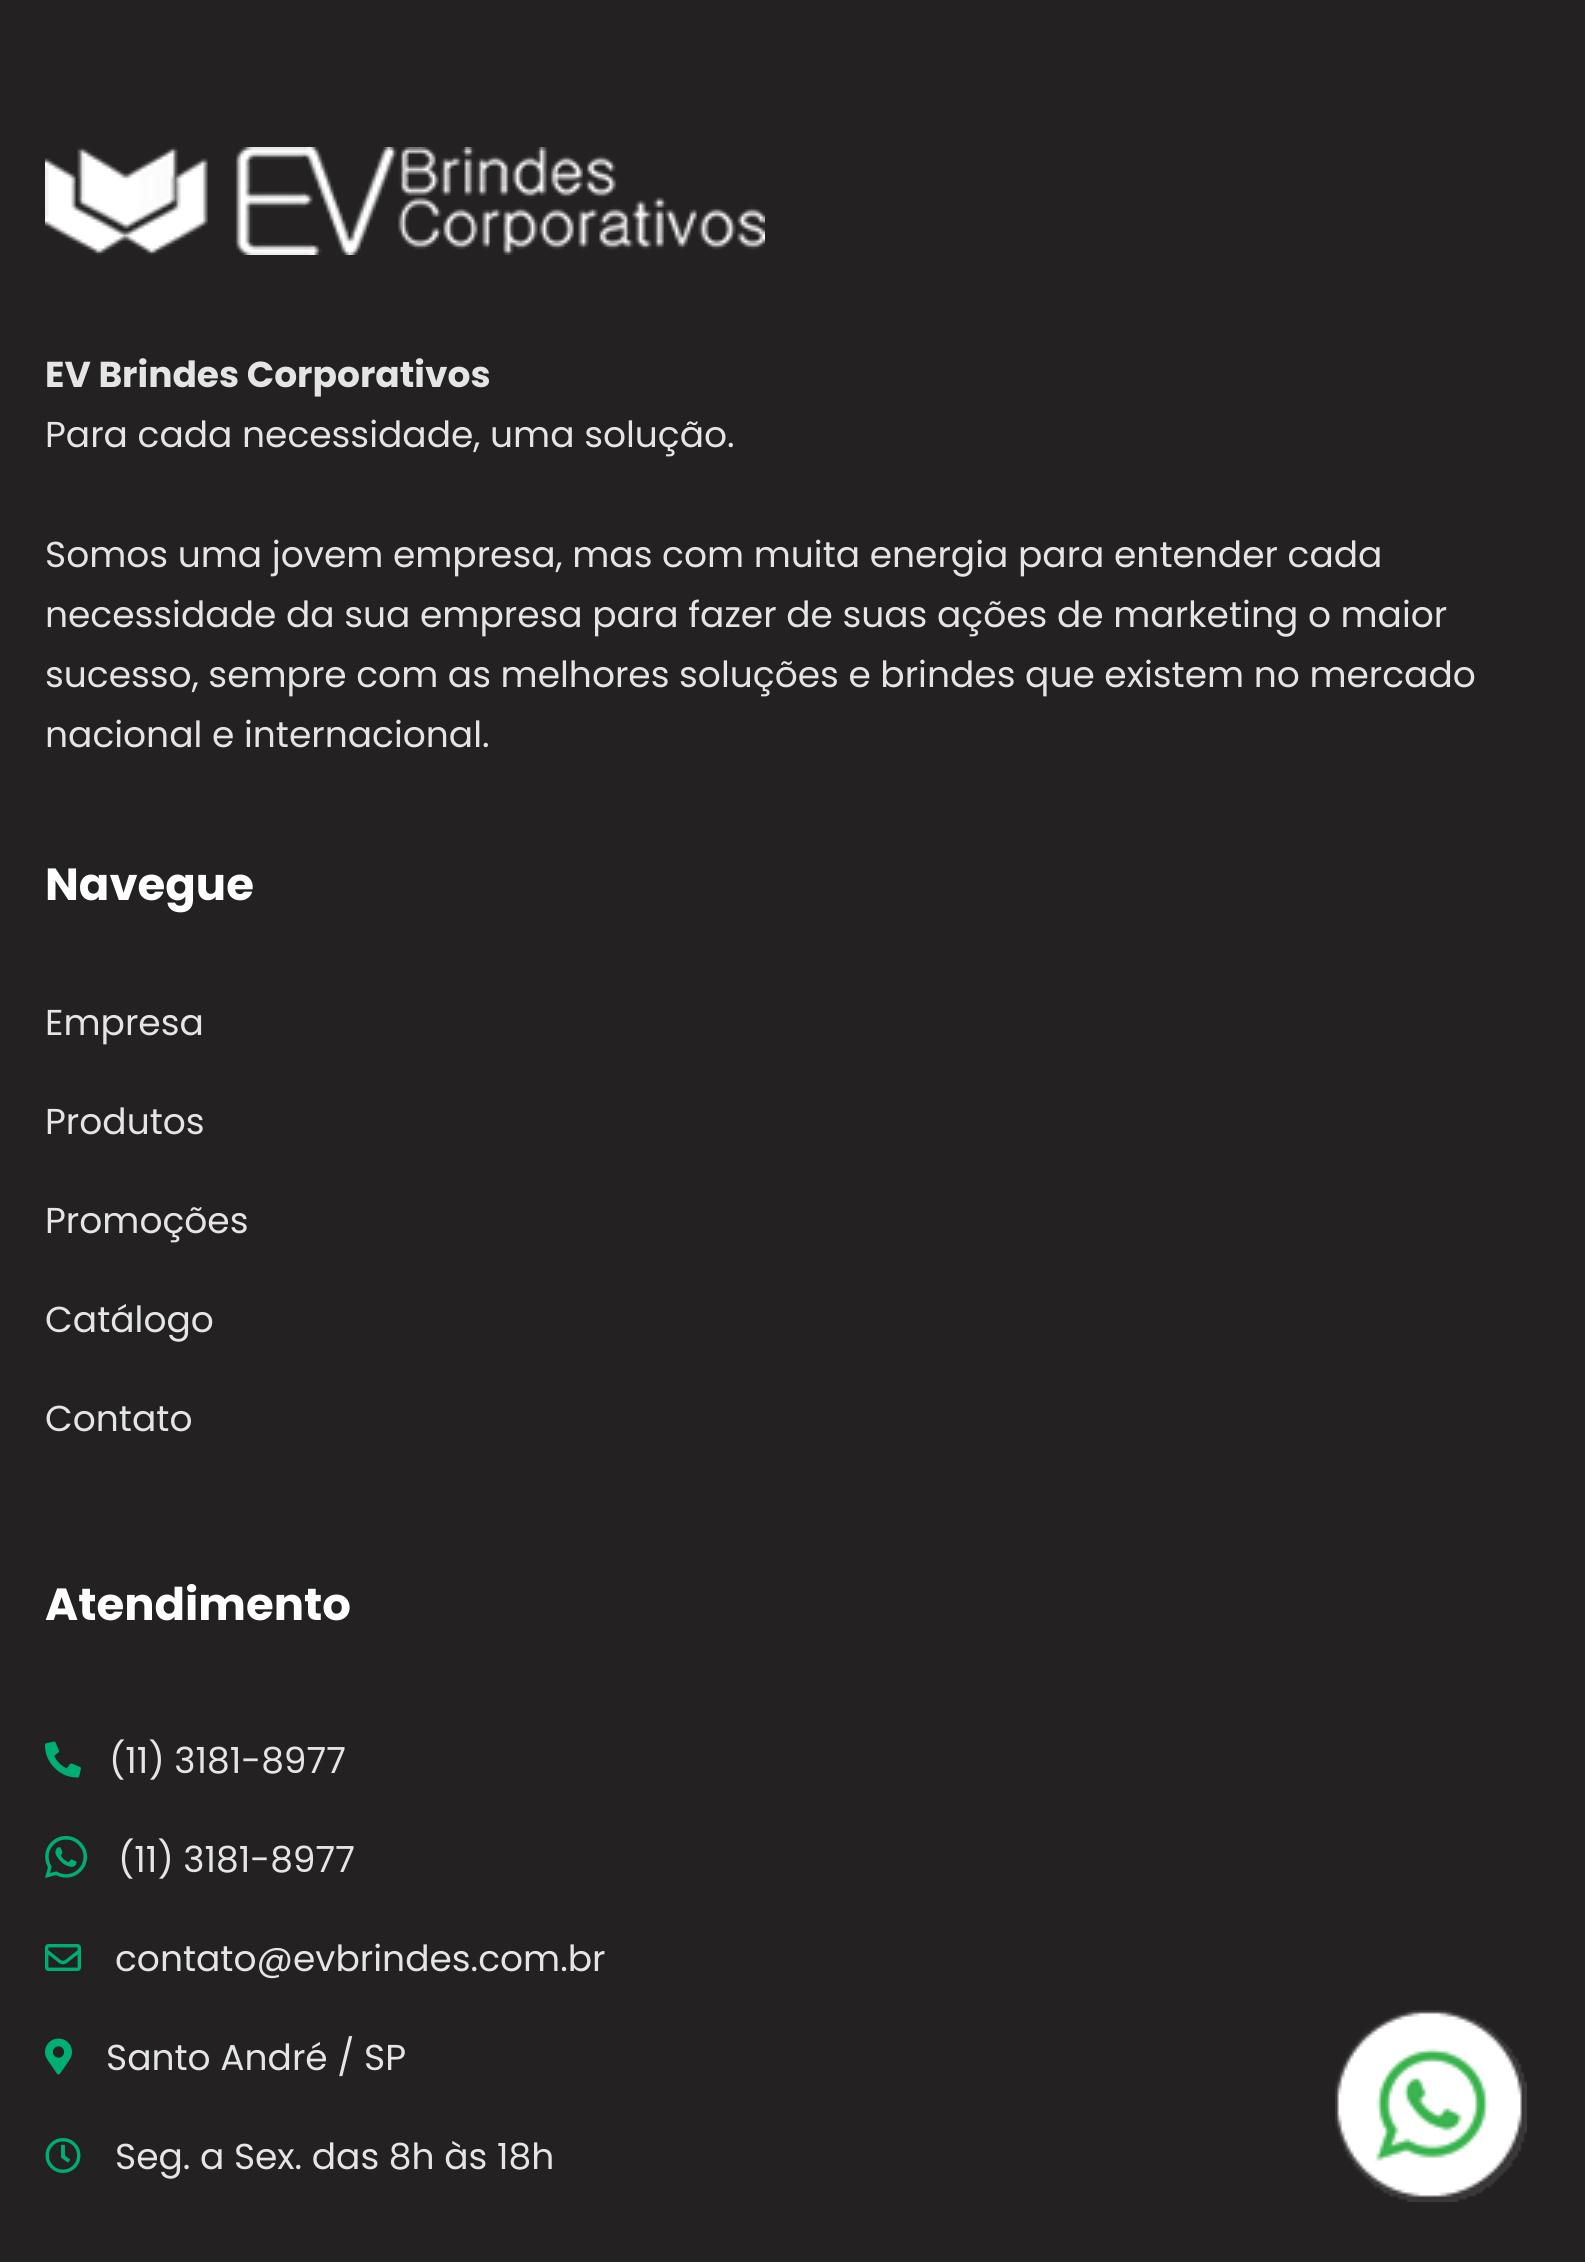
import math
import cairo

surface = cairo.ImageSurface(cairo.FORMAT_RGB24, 1585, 2262)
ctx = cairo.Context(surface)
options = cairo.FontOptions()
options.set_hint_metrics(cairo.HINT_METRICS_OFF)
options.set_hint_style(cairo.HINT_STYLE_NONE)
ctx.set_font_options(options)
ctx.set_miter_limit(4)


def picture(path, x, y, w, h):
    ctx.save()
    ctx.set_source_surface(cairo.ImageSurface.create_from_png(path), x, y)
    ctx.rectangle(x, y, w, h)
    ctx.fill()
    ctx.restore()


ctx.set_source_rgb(0.141, 0.129, 0.133)
ctx.paint()
picture("img1.png", 45, 147, 720, 108)
ctx.select_font_face("Poppins", cairo.FONT_SLANT_NORMAL, cairo.FONT_WEIGHT_BOLD)
ctx.set_font_size(36)
ctx.set_source_rgb(0.898, 0.898, 0.898)
ctx.move_to(45, 387)
ctx.show_text("EV Brindes Corporativos")
ctx.select_font_face("Poppins")
ctx.move_to(45, 447)
ctx.show_text("Para cada necessidade, uma solução.")
ctx.move_to(45, 567)
ctx.show_text("Somos uma jovem empresa, mas com muita energia para entender cada")
ctx.move_to(45, 627)
ctx.show_text("necessidade da sua empresa para fazer de suas ações de marketing o maior")
ctx.move_to(45, 687)
ctx.show_text("sucesso, sempre com as melhores soluções e brindes que existem no mercado")
ctx.move_to(45, 747)
ctx.show_text("nacional e internacional.")
ctx.select_font_face("Poppins", cairo.FONT_SLANT_NORMAL, cairo.FONT_WEIGHT_BOLD)
ctx.set_font_size(45)
ctx.set_source_rgb(1, 1, 1)
ctx.move_to(45, 900)
ctx.show_text("Navegue")
ctx.select_font_face("Poppins")
ctx.set_font_size(36)
ctx.set_source_rgb(0.898, 0.898, 0.898)
ctx.move_to(45, 1035)
ctx.show_text("Empresa")
ctx.move_to(45, 1134)
ctx.show_text("Produtos")
ctx.move_to(45, 1233)
ctx.show_text("Promoções")
ctx.move_to(45, 1332)
ctx.show_text("Catálogo")
ctx.move_to(45, 1431)
ctx.show_text("Contato")
ctx.select_font_face("Poppins", cairo.FONT_SLANT_NORMAL, cairo.FONT_WEIGHT_BOLD)
ctx.set_font_size(45)
ctx.set_source_rgb(1, 1, 1)
ctx.move_to(45, 1620)
ctx.show_text("Atendimento")
picture("img2.png", 45, 1741, 36, 37)
ctx.select_font_face("Poppins")
ctx.set_font_size(36)
ctx.set_source_rgb(0.898, 0.898, 0.898)
ctx.move_to(109, 1773)
ctx.show_text("(11) 3181-8977")
picture("img3.png", 45, 1836, 42, 42)
ctx.move_to(118, 1872)
ctx.show_text("(11) 3181-8977")
picture("img4.png", 45, 1944, 36, 27)
ctx.move_to(115, 1971)
ctx.show_text("contato@evbrindes.com.br")
picture("img5.png", 45, 2038, 27, 37)
ctx.move_to(106, 2070)
ctx.show_text("Santo André / SP")
picture("img6.png", 45, 2138, 36, 35)
ctx.move_to(115, 2169)
ctx.show_text("Seg. a Sex. das 8h às 18h")
picture("img7.png", 1335, 2010, 192, 192)
surface.write_to_png("page.png")
